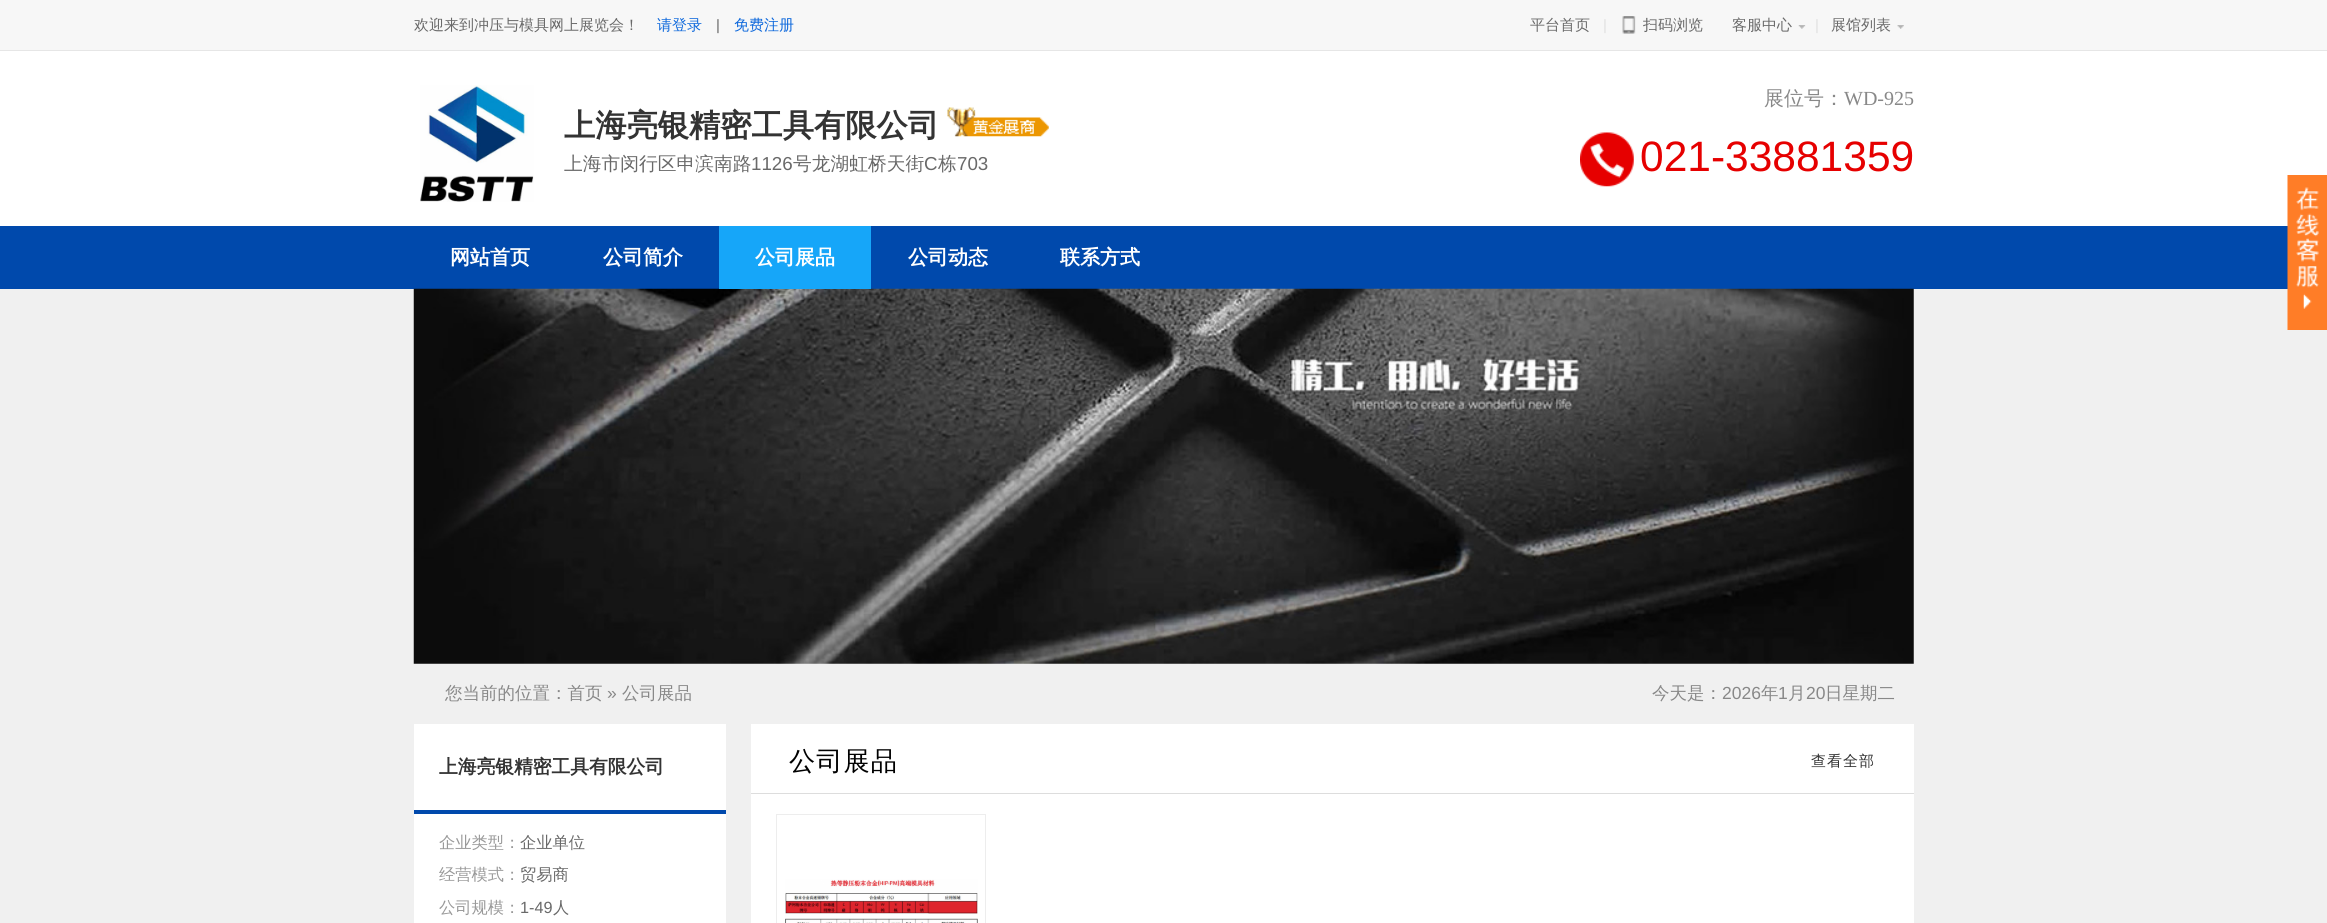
import math
import cairo

surface = cairo.ImageSurface(cairo.FORMAT_RGB24, 2327, 923)
ctx = cairo.Context(surface)
options = cairo.FontOptions()
options.set_hint_metrics(cairo.HINT_METRICS_OFF)
options.set_hint_style(cairo.HINT_STYLE_NONE)
ctx.set_font_options(options)
ctx.set_miter_limit(4)


def spaced_text(x, y, s, letter, word):
    ctx.move_to(x, y)
    for ch in s:
        ctx.show_text(ch)
        ctx.rel_move_to(letter + word * (ch == ' '), 0)


def picture(path, x, y, w, h):
    ctx.save()
    ctx.set_source_surface(cairo.ImageSurface.create_from_png(path), x, y)
    ctx.rectangle(x, y, w, h)
    ctx.fill()
    ctx.restore()


ctx.set_source_rgb(0.941, 0.941, 0.941)
ctx.paint()
ctx.set_source_rgb(0.965, 0.965, 0.965)
ctx.rectangle(0, 0, 2327, 50)
ctx.fill()
ctx.set_source_rgb(0.902, 0.902, 0.902)
ctx.rectangle(0, 50, 2327, 1)
ctx.fill()
ctx.select_font_face("WenQuanYi Zen Hei Medium")
ctx.set_font_size(15)
ctx.set_source_rgb(0.412, 0.412, 0.412)
ctx.move_to(414, 30)
ctx.show_text("欢迎来到冲压与模具网上展览会！")
ctx.set_source_rgb(0.059, 0.412, 0.863)
ctx.move_to(657, 30)
ctx.show_text("请登录")
ctx.select_font_face("Liberation Sans")
ctx.set_source_rgb(0.412, 0.412, 0.412)
ctx.move_to(716, 30)
ctx.show_text("|")
ctx.select_font_face("WenQuanYi Zen Hei Medium")
ctx.set_source_rgb(0.059, 0.412, 0.863)
ctx.move_to(734, 30)
ctx.show_text("免费注册")
ctx.set_source_rgb(0.412, 0.412, 0.412)
ctx.move_to(1530, 30)
ctx.show_text("平台首页")
ctx.select_font_face("Liberation Sans")
ctx.set_source_rgb(0.878, 0.878, 0.878)
ctx.move_to(1603, 30)
ctx.show_text("|")
picture("img1.png", 1622, 16, 14, 18)
ctx.select_font_face("WenQuanYi Zen Hei Medium")
ctx.set_source_rgb(0.412, 0.412, 0.412)
ctx.move_to(1643, 30)
ctx.show_text("扫码浏览")
picture("img2.png", 1798, 25, 8, 4)
ctx.move_to(1732, 30)
ctx.show_text("客服中心")
ctx.select_font_face("Liberation Sans")
ctx.set_source_rgb(0.878, 0.878, 0.878)
ctx.move_to(1815, 30)
ctx.show_text("|")
picture("img3.png", 1897, 25, 7, 4)
ctx.select_font_face("WenQuanYi Zen Hei Medium")
ctx.set_source_rgb(0.412, 0.412, 0.412)
ctx.move_to(1831, 30)
ctx.show_text("展馆列表")
ctx.set_source_rgb(1, 1, 1)
ctx.rectangle(0, 51, 2327, 175)
ctx.fill()
picture("img4.png", 420, 85, 114, 117)
ctx.select_font_face("WenQuanYi Zen Hei", cairo.FONT_SLANT_NORMAL, cairo.FONT_WEIGHT_BOLD)
ctx.set_font_size(31.25)
ctx.set_source_rgb(0.2, 0.2, 0.2)
ctx.move_to(564, 136)
ctx.show_text("上海亮银精密工具有限公司")
picture("img5.png", 947, 107, 102, 30)
ctx.select_font_face("WenQuanYi Zen Hei Medium")
ctx.set_font_size(18.75)
ctx.set_source_rgb(0.412, 0.412, 0.412)
ctx.move_to(564, 170)
ctx.show_text("上海市闵行区申滨南路")
ctx.select_font_face("Liberation Sans")
ctx.move_to(751, 170)
ctx.show_text("1126")
ctx.select_font_face("WenQuanYi Zen Hei Medium")
ctx.move_to(793, 170)
ctx.show_text("号龙湖虹桥天街")
ctx.select_font_face("Liberation Sans")
ctx.move_to(924, 170)
ctx.show_text("C")
ctx.select_font_face("WenQuanYi Zen Hei Medium")
ctx.move_to(938, 170)
ctx.show_text("栋")
ctx.select_font_face("Liberation Sans")
ctx.move_to(957, 170)
ctx.show_text("703")
ctx.select_font_face("WenQuanYi Zen Hei Medium")
ctx.set_font_size(20)
ctx.set_source_rgb(0.533, 0.533, 0.533)
ctx.move_to(1764, 105)
ctx.show_text("展位号：")
ctx.select_font_face("Liberation Serif")
ctx.move_to(1844, 105)
ctx.show_text("WD-925")
picture("img6.png", 1580, 132, 54, 55)
ctx.select_font_face("Liberation Sans")
ctx.set_font_size(42.5)
ctx.set_source_rgb(0.902, 0, 0)
ctx.move_to(1640, 171)
ctx.show_text("021-33881359")
ctx.set_source_rgb(0, 0.286, 0.675)
ctx.rectangle(0, 226, 2288, 63)
ctx.fill()
ctx.select_font_face("WenQuanYi Zen Hei", cairo.FONT_SLANT_NORMAL, cairo.FONT_WEIGHT_BOLD)
ctx.set_font_size(20)
ctx.set_source_rgb(1, 1, 1)
ctx.move_to(450, 264)
ctx.show_text("网站首页")
ctx.move_to(603, 264)
ctx.show_text("公司简介")
picture("img8.png", 413, 288, 1501, 376)
ctx.set_source_rgb(0.086, 0.651, 0.976)
ctx.rectangle(719, 226, 152, 63)
ctx.fill()
ctx.set_source_rgb(1, 1, 1)
ctx.move_to(755, 264)
ctx.show_text("公司展品")
ctx.move_to(908, 264)
ctx.show_text("公司动态")
ctx.move_to(1060, 264)
ctx.show_text("联系方式")
picture("img7.png", 2287, 175, 40, 155)
ctx.select_font_face("WenQuanYi Zen Hei Medium")
ctx.set_font_size(17.5)
ctx.set_source_rgb(0.533, 0.533, 0.533)
ctx.move_to(445, 699)
ctx.show_text("您当前的位置：首页")
ctx.select_font_face("Liberation Sans")
ctx.move_to(607, 699)
ctx.show_text("»")
ctx.select_font_face("WenQuanYi Zen Hei Medium")
ctx.move_to(622, 699)
ctx.show_text("公司展品")
ctx.move_to(1652, 699)
ctx.show_text("今天是：")
ctx.select_font_face("Liberation Sans")
ctx.move_to(1722, 699)
ctx.show_text("2026")
ctx.select_font_face("WenQuanYi Zen Hei Medium")
ctx.move_to(1761, 699)
ctx.show_text("年")
ctx.select_font_face("Liberation Sans")
ctx.move_to(1778, 699)
ctx.show_text("1")
ctx.select_font_face("WenQuanYi Zen Hei Medium")
ctx.move_to(1788, 699)
ctx.show_text("月")
ctx.select_font_face("Liberation Sans")
ctx.move_to(1806, 699)
ctx.show_text("20")
ctx.select_font_face("WenQuanYi Zen Hei Medium")
ctx.move_to(1825, 699)
ctx.show_text("日星期二")
ctx.set_source_rgb(1, 1, 1)
ctx.rectangle(414, 724, 312, 199)
ctx.fill()
ctx.set_source_rgb(0, 0.286, 0.675)
ctx.rectangle(414, 810, 312, 4)
ctx.fill()
ctx.select_font_face("WenQuanYi Zen Hei", cairo.FONT_SLANT_NORMAL, cairo.FONT_WEIGHT_BOLD)
ctx.set_font_size(18.75)
ctx.set_source_rgb(0.2, 0.2, 0.2)
ctx.move_to(439, 773)
ctx.show_text("上海亮银精密工具有限公司")
ctx.select_font_face("WenQuanYi Zen Hei Medium")
ctx.set_font_size(16.25)
ctx.set_source_rgb(0.6, 0.6, 0.6)
ctx.move_to(439, 848)
ctx.show_text("企业类型：")
ctx.set_source_rgb(0.412, 0.412, 0.412)
ctx.move_to(520, 848)
ctx.show_text("企业单位")
ctx.set_source_rgb(0.6, 0.6, 0.6)
ctx.move_to(439, 880)
ctx.show_text("经营模式：")
ctx.set_source_rgb(0.412, 0.412, 0.412)
ctx.move_to(520, 880)
ctx.show_text("贸易商")
ctx.set_source_rgb(0.6, 0.6, 0.6)
ctx.move_to(439, 913)
ctx.show_text("公司规模：")
ctx.select_font_face("Liberation Sans")
ctx.set_source_rgb(0.412, 0.412, 0.412)
ctx.move_to(520, 913)
ctx.show_text("1-49")
ctx.select_font_face("WenQuanYi Zen Hei Medium")
ctx.move_to(553, 913)
ctx.show_text("人")
ctx.set_source_rgb(1, 1, 1)
ctx.rectangle(751, 724, 1163, 69)
ctx.fill()
ctx.set_source_rgb(0.867, 0.867, 0.867)
ctx.rectangle(751, 793, 1163, 1)
ctx.fill()
ctx.set_font_size(26.25)
ctx.set_source_rgb(0, 0, 0)
spaced_text(789, 770, "公司展品", 1, 0)
ctx.set_font_size(15)
ctx.set_source_rgb(0.2, 0.2, 0.2)
spaced_text(1811, 766, "查看全部", 1, 0)
ctx.set_source_rgb(1, 1, 1)
ctx.rectangle(751, 794, 1163, 129)
ctx.fill()
ctx.rectangle(776.5, 814.5, 209, 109)
ctx.set_source_rgb(0.929, 0.929, 0.929)
ctx.set_line_width(1)
ctx.stroke()
picture("img9.png", 785, 879, 193, 44)
surface.write_to_png("page.png")
